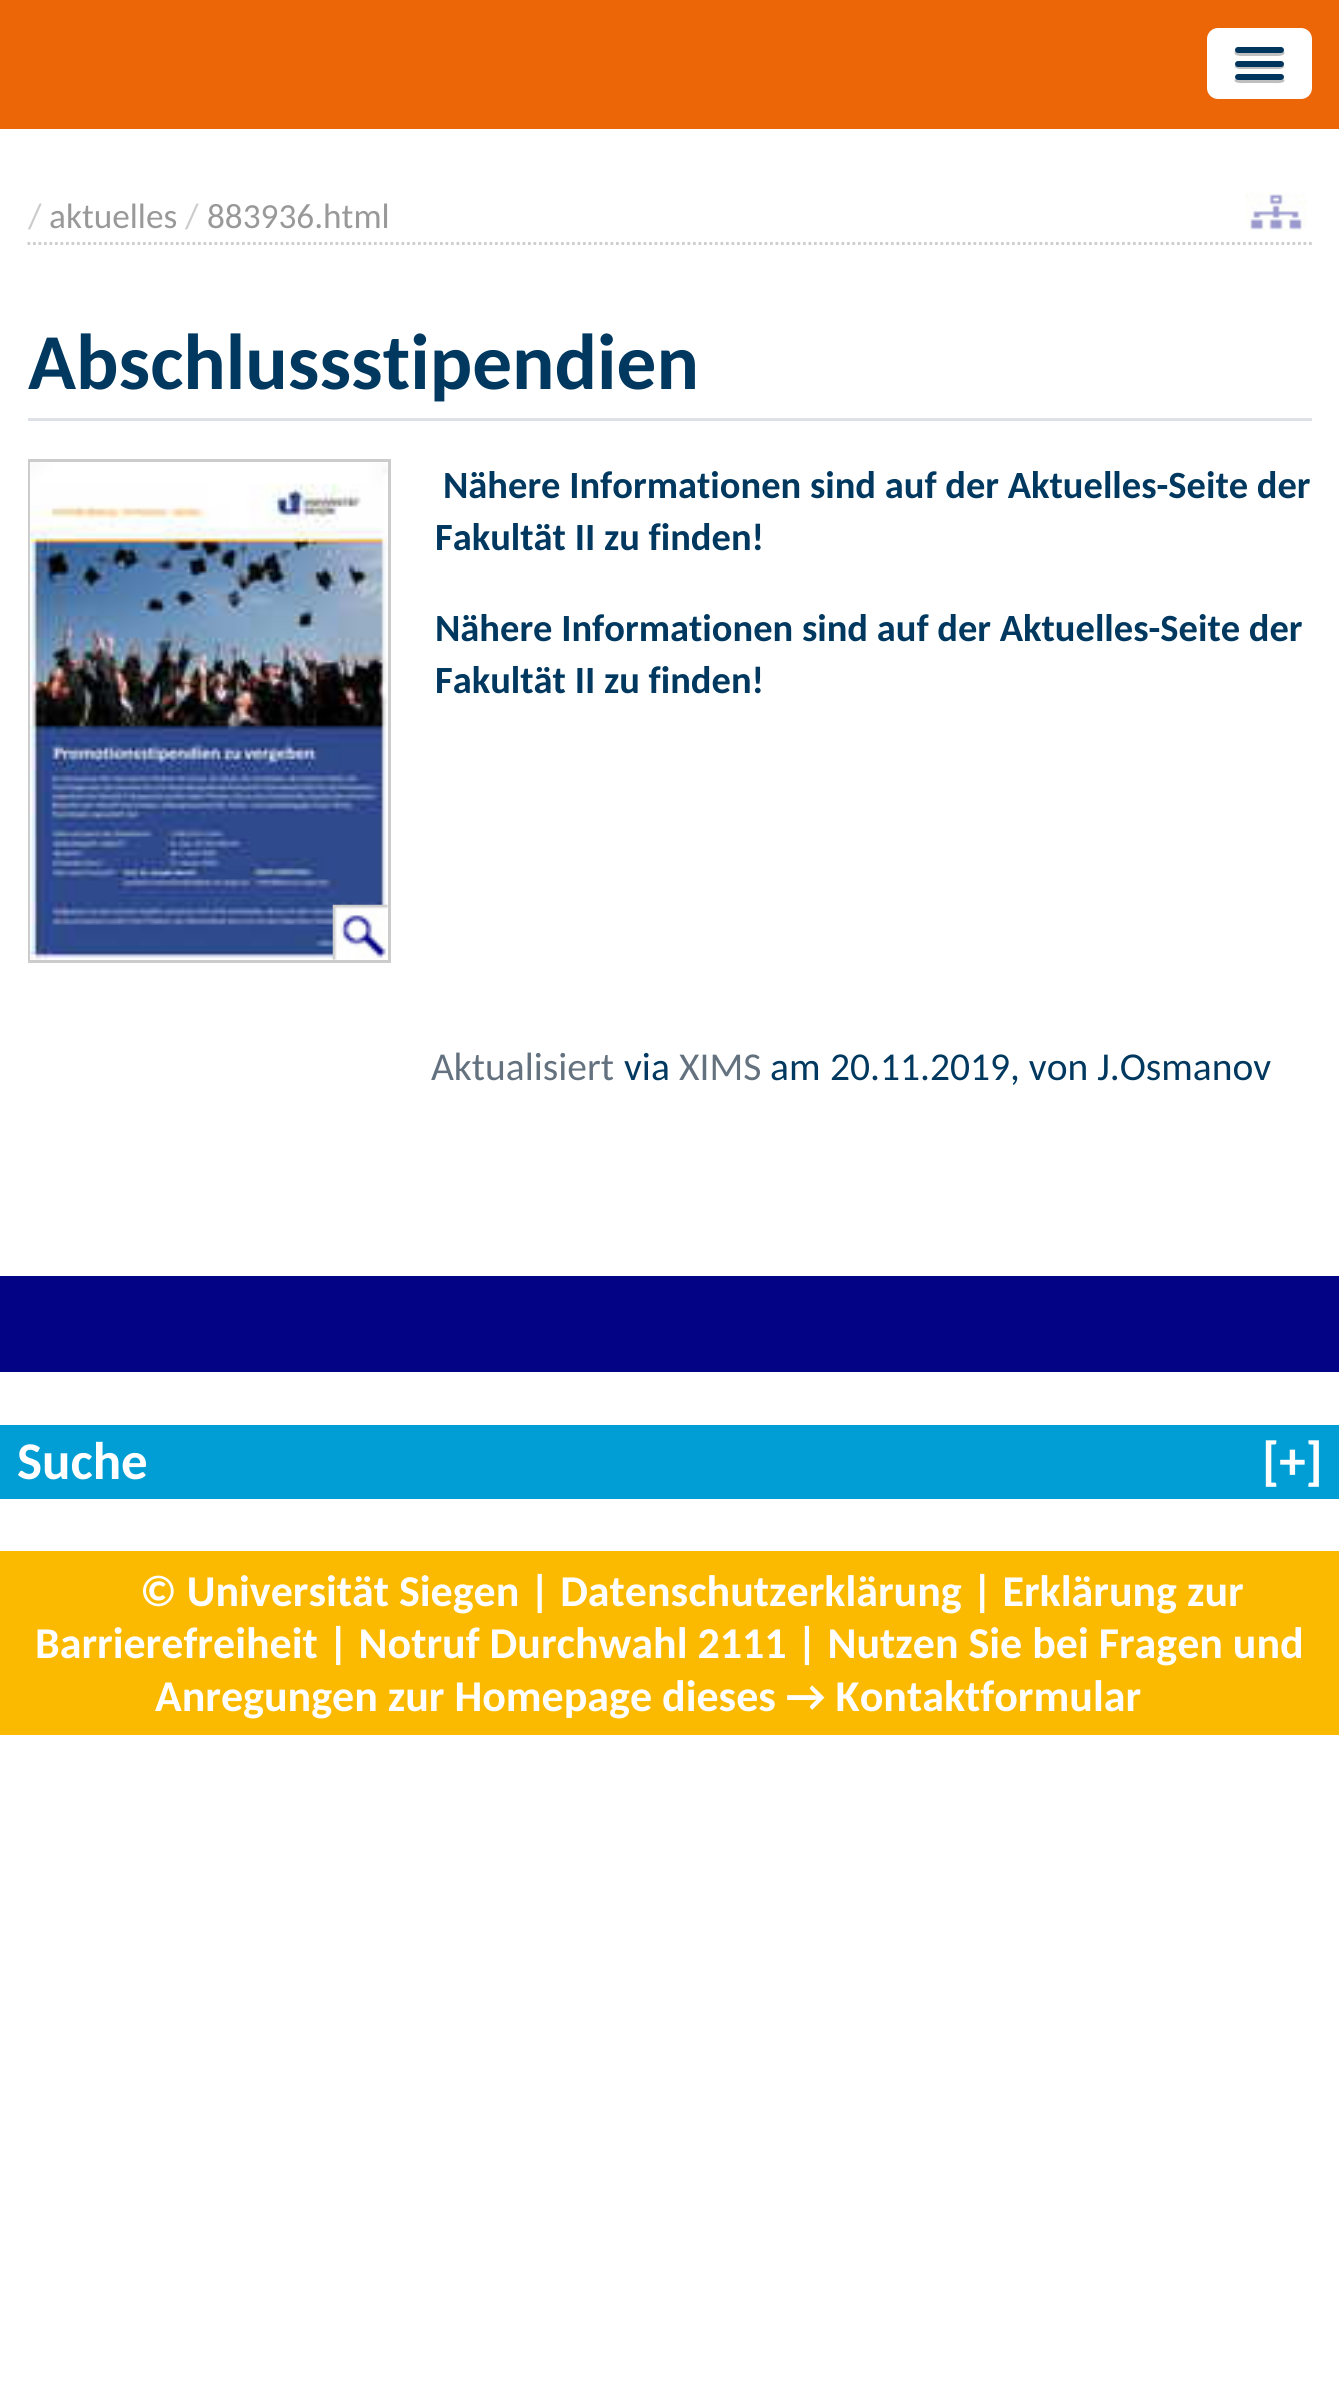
import math
import cairo

surface = cairo.ImageSurface(cairo.FORMAT_RGB24, 1339, 2396)
ctx = cairo.Context(surface)
options = cairo.FontOptions()
options.set_hint_metrics(cairo.HINT_METRICS_OFF)
options.set_hint_style(cairo.HINT_STYLE_NONE)
ctx.set_font_options(options)
ctx.set_miter_limit(4)


def round_rect(x, y, w, h, r):
    ctx.new_sub_path()
    for i, (u, v) in enumerate([(x + w - r, y + h - r), (x + r, y + h - r), (x + r, y + r), (x + w - r, y + r)]):
        ctx.arc(u, v, r, i * math.pi / 2, (i + 1) * math.pi / 2)
    ctx.close_path()


def picture(path, x, y, w, h):
    ctx.save()
    ctx.set_source_surface(cairo.ImageSurface.create_from_png(path), x, y)
    ctx.rectangle(x, y, w, h)
    ctx.fill()
    ctx.restore()


ctx.set_source_rgb(1, 1, 1)
ctx.paint()
ctx.set_source_rgb(0.925, 0.4, 0.031)
ctx.rectangle(0, 0, 1339, 129)
ctx.fill()
ctx.set_source_rgb(1, 1, 1)
round_rect(1207, 28, 105, 71, 11)
ctx.fill()
ctx.set_source_rgb(0.749, 0.749, 0.749)
ctx.new_path()
ctx.move_to(1235, 51)
ctx.curve_to(1232, 57, 1244, 56, 1245, 56)
ctx.line_to(1274, 56)
ctx.curve_to(1275, 56, 1287, 57, 1284, 51)
ctx.line_to(1282, 52)
ctx.line_to(1237, 52)
ctx.close_path()
ctx.fill()
ctx.set_source_rgb(0, 0.212, 0.369)
round_rect(1235, 47, 49, 6, 3)
ctx.fill()
ctx.set_source_rgb(0.749, 0.749, 0.749)
ctx.new_path()
ctx.move_to(1235, 65)
ctx.curve_to(1233, 70, 1244, 69, 1245, 69)
ctx.line_to(1274, 69)
ctx.curve_to(1275, 69, 1286, 70, 1284, 65)
ctx.line_to(1282, 66)
ctx.line_to(1237, 66)
ctx.close_path()
ctx.fill()
ctx.set_source_rgb(0, 0.212, 0.369)
round_rect(1235, 61, 49, 6, 3)
ctx.fill()
ctx.set_source_rgb(0.749, 0.749, 0.749)
ctx.new_path()
ctx.move_to(1235, 79)
ctx.curve_to(1232, 84, 1244, 83, 1245, 83)
ctx.line_to(1274, 83)
ctx.curve_to(1275, 83, 1287, 84, 1284, 79)
ctx.line_to(1282, 80)
ctx.line_to(1237, 80)
ctx.close_path()
ctx.fill()
ctx.set_source_rgb(0, 0.212, 0.369)
round_rect(1235, 74, 49, 6, 3)
ctx.fill()
ctx.new_path()
ctx.move_to(27.5, 243.5)
ctx.line_to(1312, 243.5)
ctx.set_source_rgb(0.8, 0.8, 0.8)
ctx.set_line_width(2.8)
ctx.set_dash([2.75, 2.75])
ctx.stroke()
ctx.select_font_face("Carlito")
ctx.set_font_size(35.25)
ctx.move_to(28, 228)
ctx.show_text("/")
ctx.set_source_rgb(0.6, 0.6, 0.6)
ctx.move_to(49, 228)
ctx.show_text("aktuelles")
ctx.set_source_rgb(0.8, 0.8, 0.8)
ctx.move_to(185, 228)
ctx.show_text("/")
ctx.set_source_rgb(0.6, 0.6, 0.6)
ctx.move_to(207, 228)
ctx.show_text("883936.html")
picture("img1.png", 1246, 192, 60, 39)
ctx.set_source_rgb(0.871, 0.886, 0.902)
ctx.rectangle(28, 418, 1284, 3)
ctx.fill()
ctx.select_font_face("Carlito", cairo.FONT_SLANT_NORMAL, cairo.FONT_WEIGHT_BOLD)
ctx.set_font_size(79.25)
ctx.set_source_rgb(0, 0.22, 0.373)
ctx.move_to(28, 389)
ctx.show_text("Abschlussstipendien")
ctx.rectangle(29.5, 460.5, 360, 501)
ctx.set_source_rgb(0.8, 0.8, 0.8)
ctx.set_line_width(3)
ctx.set_dash([])
ctx.stroke()
ctx.set_source_rgb(1, 1, 1)
ctx.rectangle(30, 462, 1, 498)
ctx.fill()
picture("img2.png", 30, 462, 358, 498)
picture("img3.png", 332, 904, 56, 56)
ctx.set_font_size(38.5)
ctx.set_source_rgb(0, 0.22, 0.373)
ctx.move_to(443, 498)
ctx.show_text("Nähere Informationen sind auf der Aktuelles-Seite der")
ctx.move_to(435, 550)
ctx.show_text("Fakultät II zu finden!")
ctx.move_to(435, 641)
ctx.show_text("Nähere Informationen sind auf der Aktuelles-Seite der")
ctx.move_to(435, 693)
ctx.show_text("Fakultät II zu finden!")
ctx.select_font_face("Carlito")
ctx.set_font_size(39.5)
ctx.set_source_rgb(0.392, 0.447, 0.498)
ctx.move_to(431, 1080)
ctx.show_text("Aktualisiert")
ctx.set_source_rgb(0, 0.22, 0.373)
ctx.move_to(624, 1080)
ctx.show_text("via")
ctx.set_source_rgb(0.392, 0.447, 0.498)
ctx.move_to(679, 1080)
ctx.show_text("XIMS")
ctx.set_source_rgb(0, 0.22, 0.373)
ctx.move_to(770, 1080)
ctx.show_text("am")
ctx.move_to(830, 1080)
ctx.show_text("20.11.2019")
ctx.move_to(1010, 1080)
ctx.show_text(", von J.Osmanov")
ctx.set_source_rgb(0.012, 0.012, 0.522)
ctx.rectangle(0, 1276, 1339, 96)
ctx.fill()
ctx.set_source_rgb(0, 0.62, 0.831)
ctx.rectangle(0, 1425, 1339, 74)
ctx.fill()
ctx.select_font_face("Carlito", cairo.FONT_SLANT_NORMAL, cairo.FONT_WEIGHT_BOLD)
ctx.set_font_size(53)
ctx.set_source_rgb(1, 1, 1)
ctx.move_to(17, 1479)
ctx.show_text("Suche")
ctx.move_to(1262, 1479)
ctx.show_text("[+]")
ctx.set_source_rgb(0.984, 0.729, 0)
ctx.rectangle(0, 1551, 1339, 184)
ctx.fill()
ctx.set_font_size(44)
ctx.set_source_rgb(1, 1, 1)
ctx.move_to(140, 1606)
ctx.show_text("© Universität Siegen | Datenschutzerklärung | Erklärung zur")
ctx.move_to(35, 1658)
ctx.show_text("Barrierefreiheit | Notruf Durchwahl 2111 | Nutzen Sie bei Fragen und")
ctx.move_to(155, 1711)
ctx.show_text("Anregungen zur Homepage dieses → Kontaktformular")
surface.write_to_png("page.png")
